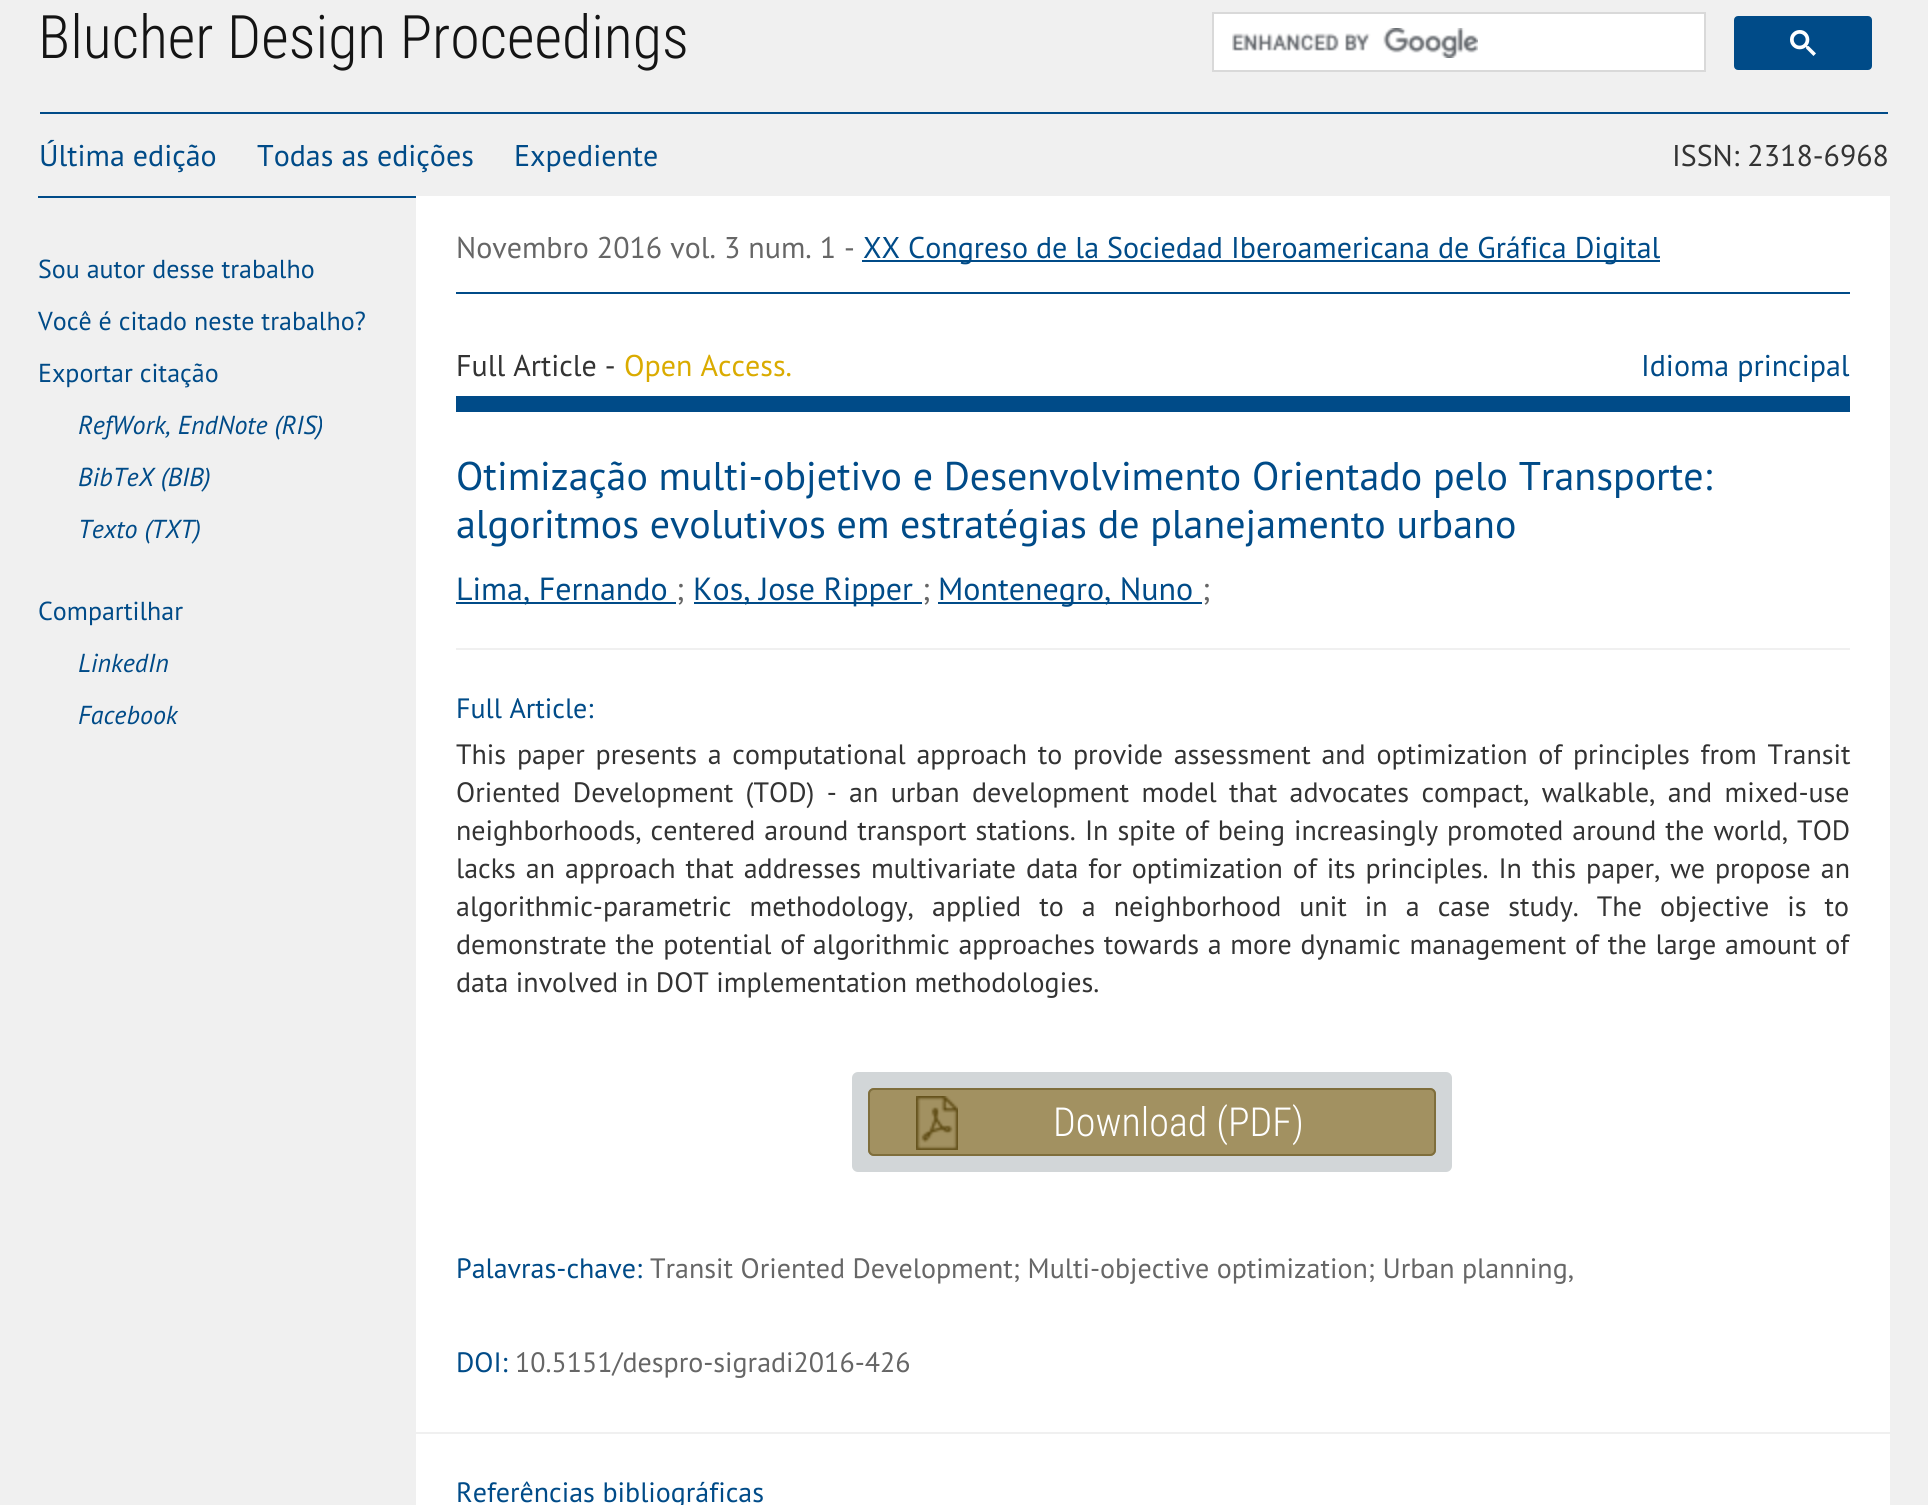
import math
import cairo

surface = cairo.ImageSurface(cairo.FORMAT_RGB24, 1928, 1505)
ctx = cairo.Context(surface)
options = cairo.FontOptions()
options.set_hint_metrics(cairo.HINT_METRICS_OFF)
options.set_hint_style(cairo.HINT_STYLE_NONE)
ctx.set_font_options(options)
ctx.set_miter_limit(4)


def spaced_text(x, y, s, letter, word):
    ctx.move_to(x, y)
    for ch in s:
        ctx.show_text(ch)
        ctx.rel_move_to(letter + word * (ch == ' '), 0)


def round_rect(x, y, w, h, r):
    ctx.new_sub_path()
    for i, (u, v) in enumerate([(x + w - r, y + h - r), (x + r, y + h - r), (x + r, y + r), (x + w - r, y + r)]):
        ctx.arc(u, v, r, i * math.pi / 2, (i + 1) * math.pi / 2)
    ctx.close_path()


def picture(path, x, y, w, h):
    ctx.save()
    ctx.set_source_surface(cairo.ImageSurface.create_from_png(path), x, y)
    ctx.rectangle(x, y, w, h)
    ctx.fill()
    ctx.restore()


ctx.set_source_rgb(0.941, 0.941, 0.941)
ctx.paint()
ctx.select_font_face("Roboto Condensed Light")
ctx.set_font_size(60)
ctx.set_source_rgb(0.082, 0.082, 0.082)
ctx.move_to(38, 58)
ctx.show_text("Blucher Design Proceedings")
ctx.set_source_rgb(1, 1, 1)
ctx.rectangle(1213, 13, 492, 58)
ctx.fill_preserve()
ctx.set_source_rgb(0.851, 0.851, 0.851)
ctx.stroke()
picture("img1.png", 1232, 28, 246, 30)
ctx.set_source_rgb(0, 0.294, 0.533)
round_rect(1735, 17, 136, 52, 3)
ctx.fill_preserve()
ctx.stroke()
picture("img2.png", 1790, 30, 26, 26)
ctx.rectangle(40, 112, 1848, 2)
ctx.fill()
ctx.select_font_face("PT Sans")
ctx.set_font_size(30)
ctx.move_to(39, 166)
ctx.show_text("Última edição")
ctx.move_to(257, 166)
ctx.show_text("Todas as edições")
ctx.move_to(514, 166)
ctx.show_text("Expediente")
ctx.set_source_rgb(0.2, 0.2, 0.2)
ctx.move_to(1672, 166)
ctx.show_text("ISSN: 2318-6968")
ctx.set_source_rgb(0, 0.294, 0.533)
ctx.rectangle(38, 196, 378, 2)
ctx.fill()
ctx.set_font_size(26)
ctx.move_to(38, 278)
ctx.show_text("Sou autor desse trabalho")
ctx.move_to(38, 330)
ctx.show_text("Você é citado neste trabalho?")
ctx.move_to(38, 382)
ctx.show_text("Exportar citação")
ctx.select_font_face("PT Sans", cairo.FONT_SLANT_ITALIC)
ctx.move_to(78, 434)
ctx.show_text("RefWork, EndNote (RIS)")
ctx.move_to(78, 486)
ctx.show_text("BibTeX (BIB)")
ctx.move_to(78, 538)
ctx.show_text("Texto (TXT)")
ctx.select_font_face("PT Sans")
ctx.move_to(38, 620)
ctx.show_text("Compartilhar")
ctx.select_font_face("PT Sans", cairo.FONT_SLANT_ITALIC)
ctx.move_to(78, 672)
ctx.show_text("LinkedIn")
ctx.move_to(78, 724)
ctx.show_text("Facebook")
ctx.set_source_rgb(1, 1, 1)
ctx.rectangle(416, 196, 1474, 1309)
ctx.fill()
ctx.set_source_rgb(0, 0.294, 0.533)
ctx.rectangle(456, 292, 1394, 2)
ctx.fill()
ctx.select_font_face("PT Sans")
ctx.set_font_size(30)
ctx.set_source_rgb(0.4, 0.4, 0.4)
ctx.move_to(456, 258)
ctx.show_text("Novembro 2016 vol. 3 num. 1 -")
ctx.set_source_rgb(0, 0.294, 0.533)
ctx.rectangle(862, 260, 798, 2)
ctx.fill()
ctx.move_to(863, 258)
ctx.show_text("XX Congreso de la Sociedad Iberoamericana de Gráfica Digital")
ctx.rectangle(456, 396, 1394, 16)
ctx.fill()
ctx.set_source_rgb(0.2, 0.2, 0.2)
ctx.move_to(456, 376)
ctx.show_text("Full Article -")
ctx.set_source_rgb(0.855, 0.671, 0)
ctx.move_to(624, 376)
ctx.show_text("Open Access.")
ctx.set_source_rgb(0, 0.294, 0.533)
ctx.move_to(1641, 376)
ctx.show_text("Idioma principal")
ctx.set_font_size(40)
ctx.move_to(456, 490)
ctx.show_text("Otimização multi-objetivo e Desenvolvimento Orientado pelo Transporte:")
ctx.move_to(456, 538)
ctx.show_text("algoritmos evolutivos em estratégias de planejamento urbano")
ctx.set_source_rgb(0.941, 0.941, 0.941)
ctx.rectangle(456, 648, 1394, 2)
ctx.fill()
ctx.set_source_rgb(0, 0.294, 0.533)
ctx.rectangle(456, 602, 220, 2)
ctx.fill()
ctx.set_font_size(32)
ctx.move_to(456, 600)
ctx.show_text("Lima, Fernando")
ctx.set_source_rgb(0.4, 0.4, 0.4)
ctx.move_to(676, 600)
ctx.show_text(";")
ctx.set_source_rgb(0, 0.294, 0.533)
ctx.rectangle(694, 602, 228, 2)
ctx.fill()
ctx.move_to(693, 600)
ctx.show_text("Kos, Jose Ripper")
ctx.set_source_rgb(0.4, 0.4, 0.4)
ctx.move_to(922, 600)
ctx.show_text(";")
ctx.set_source_rgb(0, 0.294, 0.533)
ctx.rectangle(938, 602, 264, 2)
ctx.fill()
ctx.move_to(938, 600)
ctx.show_text("Montenegro, Nuno")
ctx.set_source_rgb(0.4, 0.4, 0.4)
ctx.move_to(1202, 600)
ctx.show_text(";")
ctx.set_font_size(28)
ctx.set_source_rgb(0, 0.294, 0.533)
ctx.move_to(456, 718)
ctx.show_text("Full Article:")
ctx.set_source_rgb(0.2, 0.2, 0.2)
spaced_text(456, 764, "This paper presents a computational approach to provide assessment and optimization of principles from Transit", 0, 3.25)
spaced_text(456, 802, "Oriented Development (TOD) - an urban development model that advocates compact, walkable, and mixed-use", 0, 4.9)
spaced_text(456, 840, "neighborhoods, centered around transport stations. In spite of being increasingly promoted around the world, TOD", 0, 1.6)
spaced_text(456, 878, "lacks an approach that addresses multivariate data for optimization of its principles. In this paper, we propose an", 0, 2.5)
spaced_text(456, 916, "algorithmic-parametric methodology, applied to a neighborhood unit in a case study. The objective is to", 0, 10.6)
spaced_text(456, 954, "demonstrate the potential of algorithmic approaches towards a more dynamic management of the large amount of", 0, 1.25)
ctx.move_to(456, 992)
ctx.show_text("data involved in DOT implementation methodologies.")
ctx.set_source_rgb(0.824, 0.839, 0.847)
round_rect(852, 1072, 600, 100, 6)
ctx.fill()
ctx.set_source_rgb(0.635, 0.569, 0.38)
round_rect(868, 1088, 568, 68, 6)
ctx.fill()
picture("img3.png", 916, 1096, 42, 54)
round_rect(869, 1089, 566, 66, 5)
ctx.set_source_rgb(0.498, 0.431, 0.235)
ctx.stroke()
ctx.select_font_face("Roboto Condensed Light")
ctx.set_font_size(40)
ctx.set_source_rgb(1, 1, 1)
ctx.move_to(1053, 1136)
ctx.show_text("Download (PDF)")
ctx.select_font_face("PT Sans")
ctx.set_font_size(28)
ctx.set_source_rgb(0, 0.294, 0.533)
ctx.move_to(456, 1278)
ctx.show_text("Palavras-chave:")
ctx.set_source_rgb(0.4, 0.4, 0.4)
ctx.move_to(650, 1278)
ctx.show_text("Transit Oriented Development; Multi-objective optimization; Urban planning,")
ctx.set_source_rgb(0, 0.294, 0.533)
ctx.move_to(456, 1372)
ctx.show_text("DOI:")
ctx.set_source_rgb(0.4, 0.4, 0.4)
ctx.move_to(515, 1372)
ctx.show_text("10.5151/despro-sigradi2016-426")
ctx.set_source_rgb(0.941, 0.941, 0.941)
ctx.rectangle(416, 1432, 1474, 2)
ctx.fill()
ctx.set_source_rgb(0, 0.294, 0.533)
ctx.move_to(456, 1502)
ctx.show_text("Referências bibliográficas")
surface.write_to_png("page.png")
